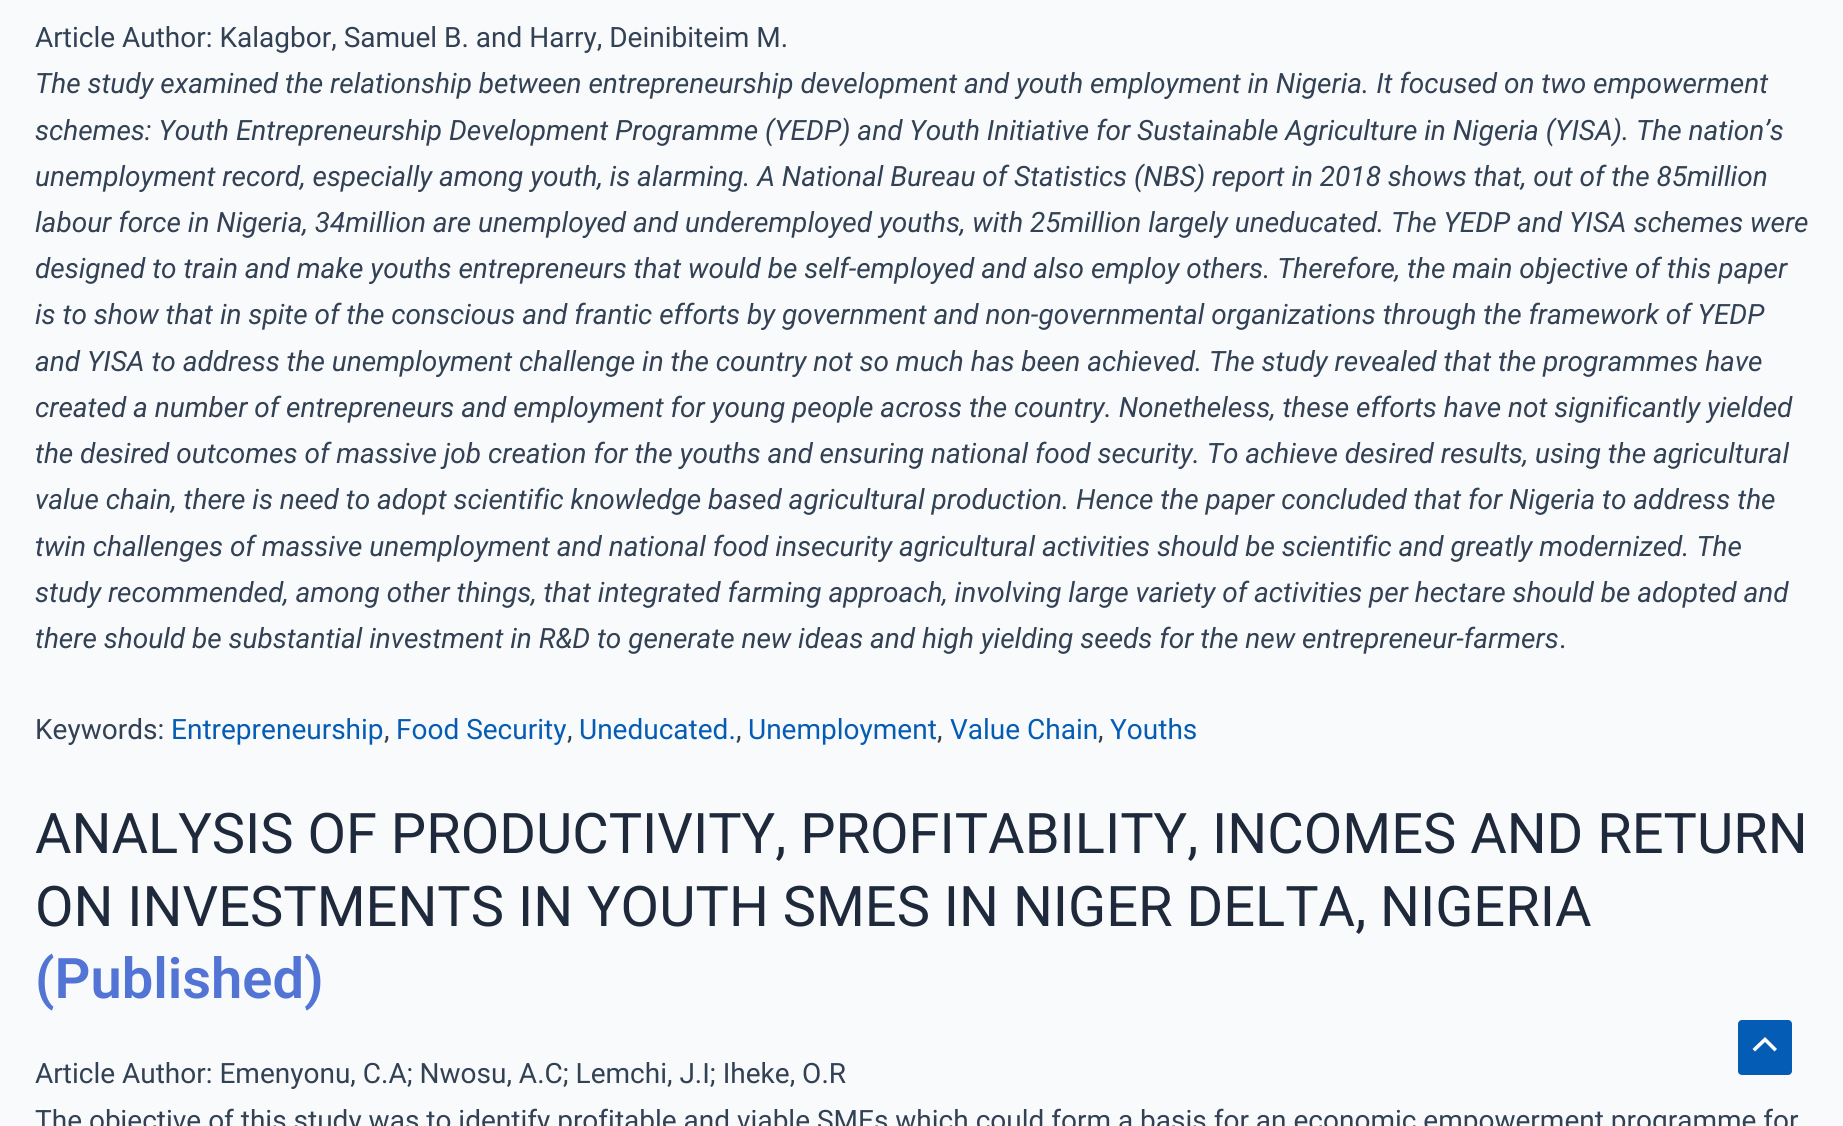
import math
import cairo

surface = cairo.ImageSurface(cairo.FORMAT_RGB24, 1843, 1126)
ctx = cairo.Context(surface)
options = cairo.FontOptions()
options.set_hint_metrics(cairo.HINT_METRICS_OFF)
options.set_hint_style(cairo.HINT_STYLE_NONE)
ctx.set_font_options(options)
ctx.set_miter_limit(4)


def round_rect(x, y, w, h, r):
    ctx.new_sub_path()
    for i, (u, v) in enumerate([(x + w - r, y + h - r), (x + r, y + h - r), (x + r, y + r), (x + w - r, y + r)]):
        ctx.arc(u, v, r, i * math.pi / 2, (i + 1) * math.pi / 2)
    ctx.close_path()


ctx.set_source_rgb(0.976, 0.98, 0.984)
ctx.paint()
ctx.select_font_face("Roboto")
ctx.set_font_size(28)
ctx.set_source_rgb(0.2, 0.255, 0.333)
ctx.move_to(35, 47)
ctx.show_text("Article Author: Kalagbor, Samuel B. and Harry, Deinibiteim M.")
ctx.select_font_face("Roboto", cairo.FONT_SLANT_ITALIC)
ctx.move_to(35, 93)
ctx.show_text("The study examined the relationship between entrepreneurship development and youth employment in Nigeria. It focused on two empowerment")
ctx.move_to(35, 140)
ctx.show_text("schemes: Youth Entrepreneurship Development Programme (YEDP) and Youth Initiative for Sustainable Agriculture in Nigeria (YISA). The nation’s")
ctx.move_to(35, 186)
ctx.show_text("unemployment record, especially among youth, is alarming. A National Bureau of Statistics (NBS) report in 2018 shows that, out of the 85million")
ctx.move_to(35, 232)
ctx.show_text("labour force in Nigeria, 34million are unemployed and underemployed youths, with 25million largely uneducated. The YEDP and YISA schemes were")
ctx.move_to(35, 278)
ctx.show_text("designed to train and make youths entrepreneurs that would be self-employed and also employ others. Therefore, the main objective of this paper")
ctx.move_to(35, 324)
ctx.show_text("is to show that in spite of the conscious and frantic efforts by government and non-governmental organizations through the framework of YEDP")
ctx.move_to(35, 371)
ctx.show_text("and YISA to address the unemployment challenge in the country not so much has been achieved. The study revealed that the programmes have")
ctx.move_to(35, 417)
ctx.show_text("created a number of entrepreneurs and employment for young people across the country. Nonetheless, these efforts have not significantly yielded")
ctx.move_to(35, 463)
ctx.show_text("the desired outcomes of massive job creation for the youths and ensuring national food security. To achieve desired results, using the agricultural")
ctx.move_to(35, 509)
ctx.show_text("value chain, there is need to adopt scientific knowledge based agricultural production. Hence the paper concluded that for Nigeria to address the")
ctx.move_to(35, 556)
ctx.show_text("twin challenges of massive unemployment and national food insecurity agricultural activities should be scientific and greatly modernized. The")
ctx.move_to(35, 602)
ctx.show_text("study recommended, among other things, that integrated farming approach, involving large variety of activities per hectare should be adopted and")
ctx.move_to(35, 648)
ctx.show_text("there should be substantial investment in R&D to generate new ideas and high yielding seeds for the new entrepreneur-farmers")
ctx.select_font_face("Roboto")
ctx.move_to(1559, 648)
ctx.show_text(".")
ctx.move_to(35, 739)
ctx.show_text("Keywords:")
ctx.set_source_rgb(0.016, 0.361, 0.706)
ctx.move_to(171, 739)
ctx.show_text("Entrepreneurship")
ctx.set_source_rgb(0.2, 0.255, 0.333)
ctx.move_to(384, 739)
ctx.show_text(",")
ctx.set_source_rgb(0.016, 0.361, 0.706)
ctx.move_to(396, 739)
ctx.show_text("Food Security")
ctx.set_source_rgb(0.2, 0.255, 0.333)
ctx.move_to(567, 739)
ctx.show_text(",")
ctx.set_source_rgb(0.016, 0.361, 0.706)
ctx.move_to(579, 739)
ctx.show_text("Uneducated.")
ctx.set_source_rgb(0.2, 0.255, 0.333)
ctx.move_to(736, 739)
ctx.show_text(",")
ctx.set_source_rgb(0.016, 0.361, 0.706)
ctx.move_to(748, 739)
ctx.show_text("Unemployment")
ctx.set_source_rgb(0.2, 0.255, 0.333)
ctx.move_to(937, 739)
ctx.show_text(",")
ctx.set_source_rgb(0.016, 0.361, 0.706)
ctx.move_to(950, 739)
ctx.show_text("Value Chain")
ctx.set_source_rgb(0.2, 0.255, 0.333)
ctx.move_to(1098, 739)
ctx.show_text(",")
ctx.set_source_rgb(0.016, 0.361, 0.706)
ctx.move_to(1110, 739)
ctx.show_text("Youths")
ctx.set_font_size(56)
ctx.set_source_rgb(0.118, 0.161, 0.231)
ctx.move_to(35, 853)
ctx.show_text("ANALYSIS OF PRODUCTIVITY, PROFITABILITY, INCOMES AND RETURN")
ctx.move_to(35, 926)
ctx.show_text("ON INVESTMENTS IN YOUTH SMES IN NIGER DELTA, NIGERIA")
ctx.select_font_face("Roboto SemiBold")
ctx.set_source_rgb(0.322, 0.455, 0.835)
ctx.move_to(35, 998)
ctx.show_text("(Published)")
ctx.select_font_face("Roboto")
ctx.set_font_size(28)
ctx.set_source_rgb(0.2, 0.255, 0.333)
ctx.move_to(35, 1083)
ctx.show_text("Article Author: Emenyonu, C.A; Nwosu, A.C; Lemchi, J.I; Iheke, O.R")
ctx.move_to(35, 1130)
ctx.show_text("The objective of this study was to identify profitable and viable SMEs which could form a basis for an economic empowerment programme for")
ctx.set_source_rgb(0.016, 0.361, 0.706)
round_rect(1738, 1020, 54, 55, 4)
ctx.fill()
ctx.set_source_rgb(1, 1, 1)
ctx.new_path()
ctx.move_to(1777, 1049)
ctx.line_to(1765, 1037)
ctx.line_to(1752.5, 1049)
ctx.line_to(1755, 1051.5)
ctx.line_to(1765, 1042)
ctx.line_to(1774.5, 1051.5)
ctx.close_path()
ctx.fill()
surface.write_to_png("page.png")
